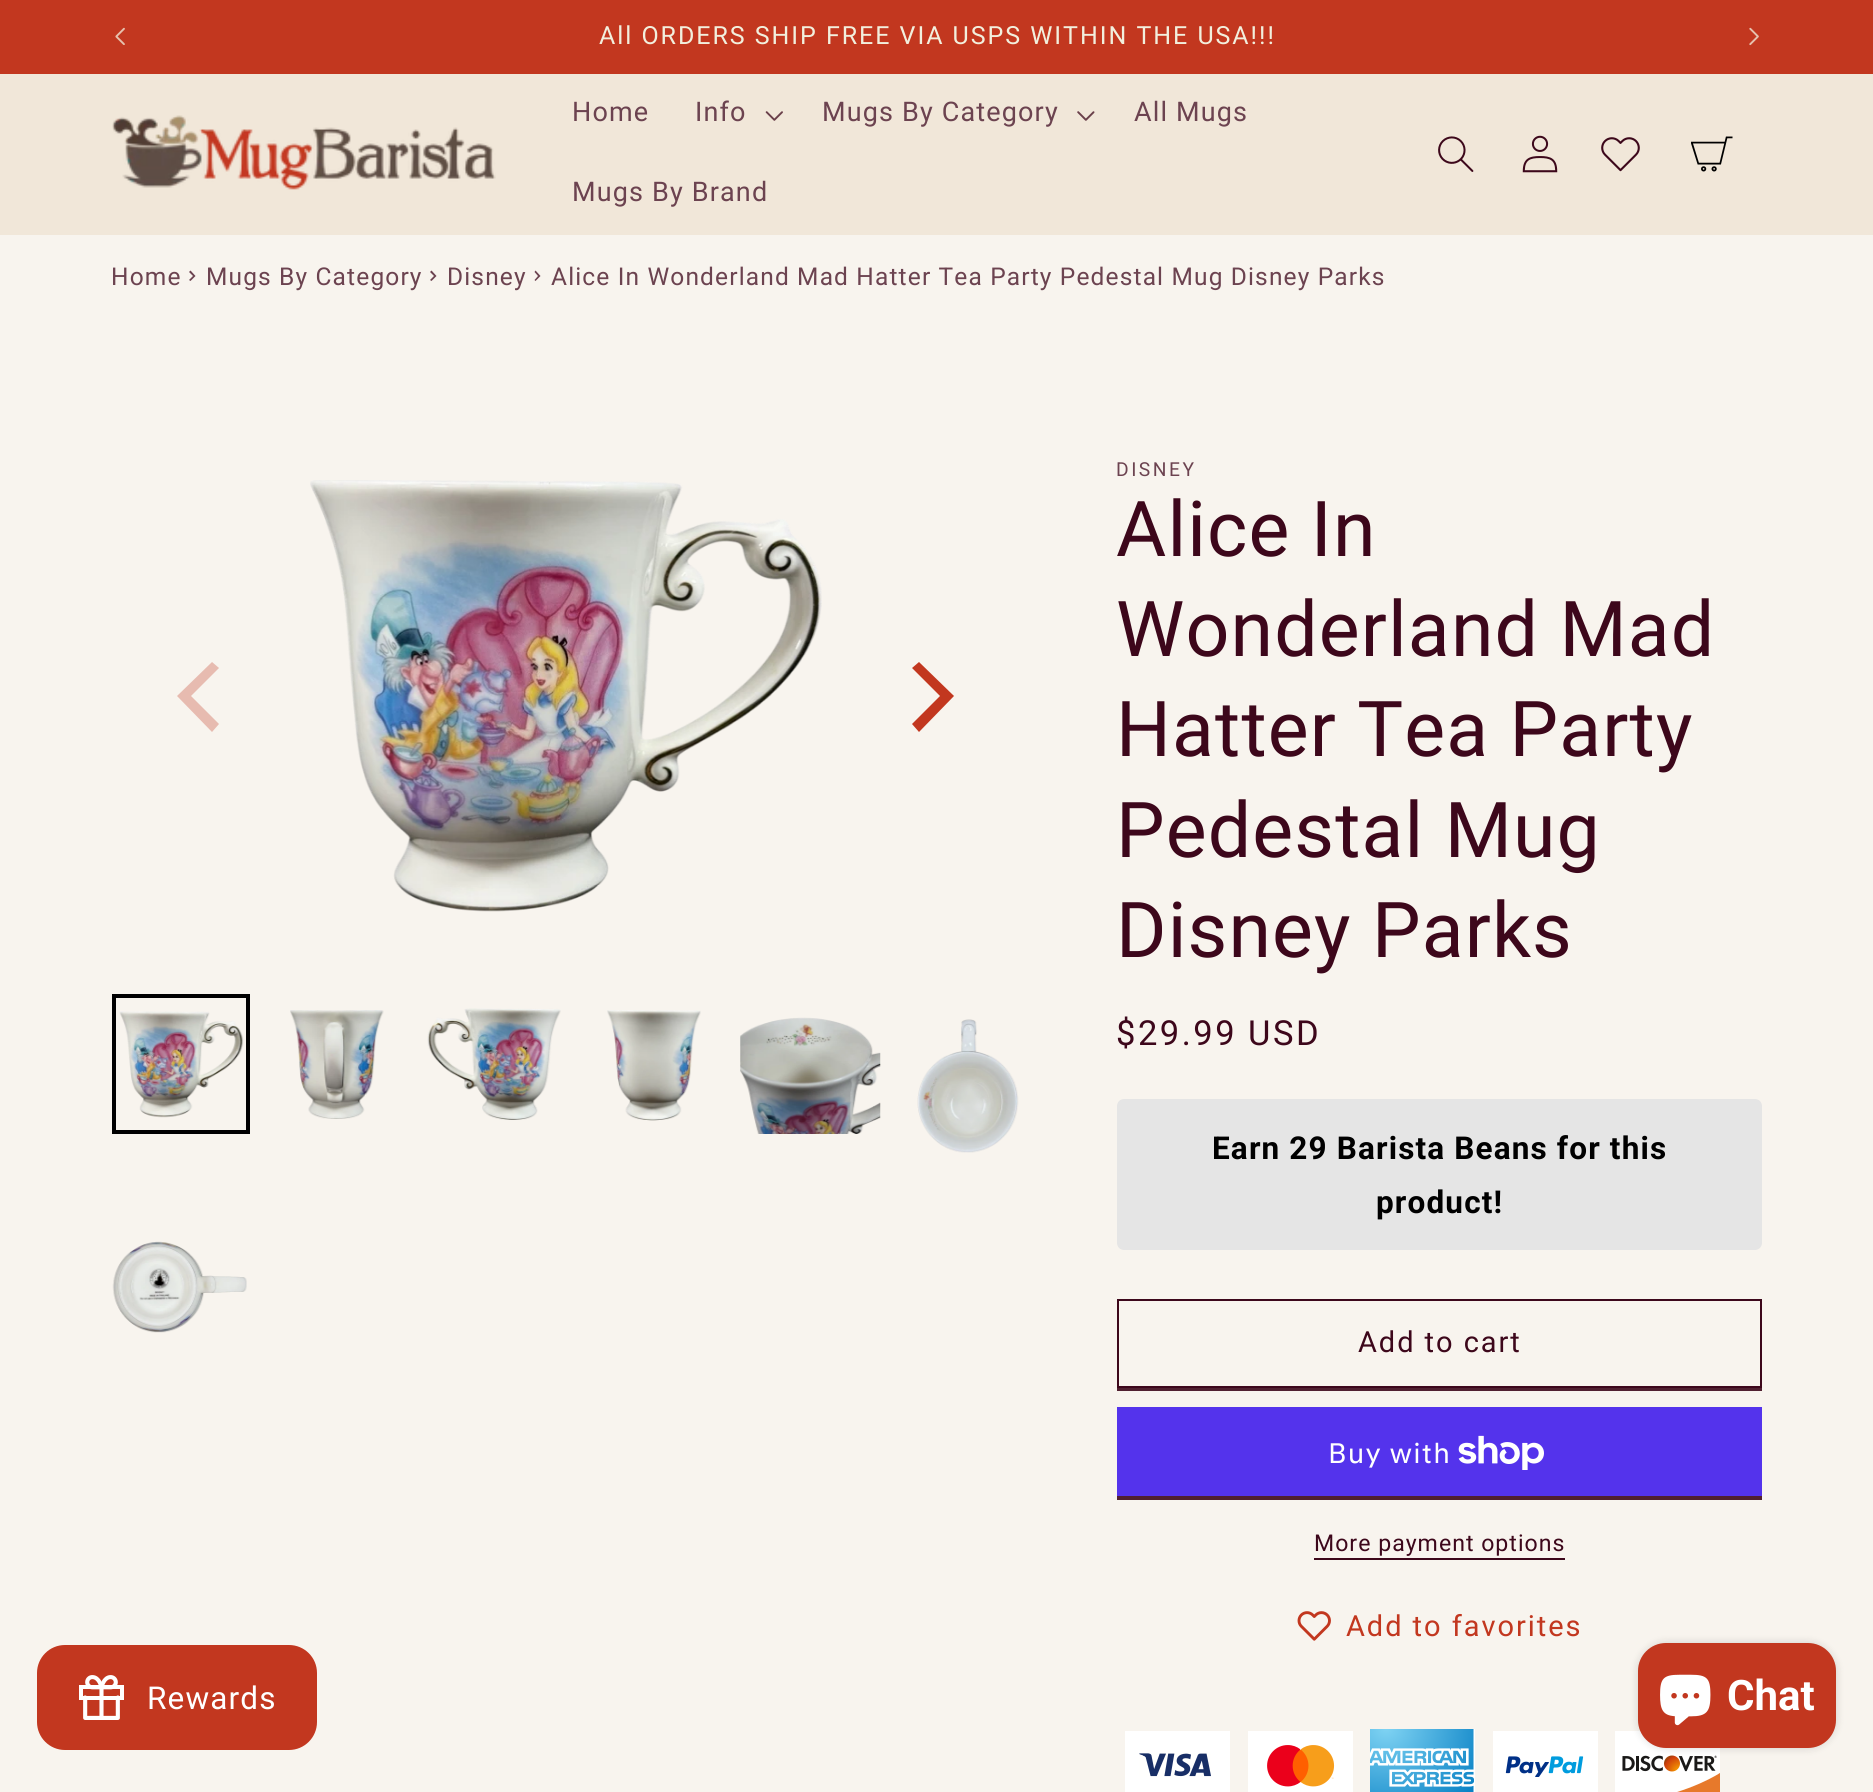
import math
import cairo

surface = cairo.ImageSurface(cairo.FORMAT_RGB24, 1873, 1792)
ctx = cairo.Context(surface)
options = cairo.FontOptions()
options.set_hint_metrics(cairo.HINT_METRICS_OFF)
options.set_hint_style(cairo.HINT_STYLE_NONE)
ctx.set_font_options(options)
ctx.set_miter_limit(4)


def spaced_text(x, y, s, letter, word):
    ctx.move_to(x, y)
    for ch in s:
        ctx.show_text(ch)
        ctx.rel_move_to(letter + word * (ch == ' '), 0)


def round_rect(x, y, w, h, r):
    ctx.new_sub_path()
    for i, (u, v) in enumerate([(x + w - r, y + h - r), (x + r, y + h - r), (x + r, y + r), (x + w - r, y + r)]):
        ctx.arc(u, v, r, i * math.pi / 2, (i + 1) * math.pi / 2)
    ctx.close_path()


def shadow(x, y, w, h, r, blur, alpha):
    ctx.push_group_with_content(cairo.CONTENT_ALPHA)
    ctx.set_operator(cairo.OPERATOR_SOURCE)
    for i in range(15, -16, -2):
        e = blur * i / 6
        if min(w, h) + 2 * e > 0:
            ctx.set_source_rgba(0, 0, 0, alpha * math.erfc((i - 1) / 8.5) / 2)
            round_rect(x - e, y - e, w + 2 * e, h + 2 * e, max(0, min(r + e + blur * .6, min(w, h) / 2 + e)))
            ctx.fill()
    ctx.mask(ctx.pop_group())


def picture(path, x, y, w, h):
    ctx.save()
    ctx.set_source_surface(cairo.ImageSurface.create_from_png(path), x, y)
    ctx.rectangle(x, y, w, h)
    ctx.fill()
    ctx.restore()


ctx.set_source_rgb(0.969, 0.957, 0.933)
ctx.paint()
ctx.set_source_rgb(0.761, 0.216, 0.122)
ctx.rectangle(0, 0, 1873, 74)
ctx.fill()
picture("img1.png", 115, 27, 10, 18)
ctx.select_font_face("Roboto")
ctx.set_font_size(25)
ctx.set_source_rgb(0.949, 0.937, 0.867)
spaced_text(599, 44, "All ORDERS SHIP FREE VIA USPS WITHIN THE USA!!!", 1.95, 0)
picture("img2.png", 1749, 27, 10, 19)
ctx.set_source_rgb(0.945, 0.906, 0.851)
ctx.rectangle(0, 74, 1873, 161)
ctx.fill()
picture("img3.png", 112, 115, 384, 75)
ctx.set_font_size(27)
ctx.set_source_rgb(0.424, 0.263, 0.314)
spaced_text(572, 121, "Home", 1.15, 0)
spaced_text(695, 121, "Info", 1.15, 0)
picture("img4.png", 765, 111, 18, 10)
spaced_text(822, 121, "Mugs By Category", 1.15, 0)
picture("img5.png", 1077, 111, 18, 10)
spaced_text(1134, 121, "All Mugs", 1.15, 0)
spaced_text(572, 201, "Mugs By Brand", 1.15, 0)
picture("img6.png", 1438, 136, 36, 36)
picture("img7.png", 1522, 135, 36, 38)
picture("img8.png", 1601, 137, 39, 35)
picture("img9.png", 1691, 136, 42, 36)
ctx.set_font_size(24.5)
spaced_text(111, 285, "Home", 1.15, 0)
ctx.new_path()
ctx.move_to(190.5, 270.5)
ctx.line_to(195.5, 276)
ctx.line_to(193, 276)
ctx.line_to(189, 272)
ctx.close_path()
ctx.move_to(195.5, 276)
ctx.line_to(190.5, 281)
ctx.line_to(189, 280)
ctx.line_to(193, 276)
ctx.close_path()
ctx.fill()
spaced_text(206, 285, "Mugs By Category", 1.15, 0)
ctx.new_path()
ctx.move_to(431.5, 270.5)
ctx.line_to(436.5, 276)
ctx.line_to(434, 276)
ctx.line_to(430, 272)
ctx.close_path()
ctx.move_to(436.5, 276)
ctx.line_to(431.5, 281)
ctx.line_to(430, 280)
ctx.line_to(434, 276)
ctx.close_path()
ctx.fill()
spaced_text(447, 285, "Disney", 1.15, 0)
ctx.new_path()
ctx.move_to(535.5, 270.5)
ctx.line_to(540.5, 276)
ctx.line_to(538, 276)
ctx.line_to(534.5, 272)
ctx.close_path()
ctx.move_to(540.5, 276)
ctx.line_to(535.5, 281)
ctx.line_to(534.5, 280)
ctx.line_to(538, 276)
ctx.close_path()
ctx.fill()
spaced_text(551, 285, "Alice In Wonderland Mad Hatter Tea Party Pedestal Mug Disney Parks", 1.15, 0)
ctx.set_source_rgb(0.906, 0.733, 0.69)
ctx.new_path()
ctx.move_to(177, 696)
ctx.line_to(212, 732)
ctx.line_to(219, 724)
ctx.line_to(191, 696)
ctx.line_to(219, 668)
ctx.line_to(212, 662)
ctx.close_path()
ctx.fill()
picture("img10.png", 310, 480, 512, 432)
ctx.set_source_rgb(0.761, 0.216, 0.122)
ctx.new_path()
ctx.move_to(954, 696)
ctx.line_to(919, 662)
ctx.line_to(912, 668)
ctx.line_to(940, 696)
ctx.line_to(912, 724)
ctx.line_to(919, 732)
ctx.close_path()
ctx.fill()
ctx.rectangle(114, 996, 134, 136)
ctx.set_source_rgb(0, 0, 0)
ctx.set_line_width(4)
ctx.stroke()
picture("img11.png", 119, 1011, 125, 107)
picture("img12.png", 290, 1010, 94, 109)
picture("img13.png", 427, 1008, 134, 112)
picture("img14.png", 607, 1010, 94, 111)
picture("img15.png", 740, 1017, 141, 117)
picture("img16.png", 917, 1019, 102, 134)
picture("img17.png", 112, 1241, 135, 92)
ctx.set_font_size(19.25)
ctx.set_source_rgb(0.424, 0.263, 0.314)
spaced_text(1116, 476, "DISNEY", 2.5, 0)
ctx.set_font_size(77)
ctx.set_source_rgb(0.239, 0.031, 0.106)
spaced_text(1116, 556, "Alice In", 1.15, 0)
spaced_text(1116, 656, "Wonderland Mad", 1.15, 0)
spaced_text(1116, 756, "Hatter Tea Party", 1.15, 0)
spaced_text(1116, 857, "Pedestal Mug", 1.15, 0)
spaced_text(1116, 957, "Disney Parks", 1.15, 0)
ctx.set_font_size(34.5)
spaced_text(1116, 1045, "$29.99 USD", 2.5, 0)
ctx.set_source_rgb(0.898, 0.898, 0.898)
round_rect(1117, 1099, 645, 151, 7)
ctx.fill()
ctx.select_font_face("Roboto", cairo.FONT_SLANT_NORMAL, cairo.FONT_WEIGHT_BOLD)
ctx.set_font_size(31.5)
ctx.set_source_rgb(0, 0, 0)
spaced_text(1212, 1159, "Earn 29 Barista Beans for this", 1.15, 0)
spaced_text(1376, 1213, "product!", 1.15, 0)
ctx.rectangle(1118, 1300, 643, 87)
ctx.set_source_rgb(0.239, 0.031, 0.106)
ctx.set_line_width(2)
ctx.stroke()
ctx.select_font_face("Roboto")
ctx.set_font_size(29)
spaced_text(1358, 1352, "Add to cart", 1.95, 0)
ctx.set_source_rgb(0.314, 0.125, 0.188)
ctx.rectangle(1117, 1388, 645, 3)
ctx.fill()
ctx.rectangle(1117, 1496, 645, 4)
ctx.fill()
ctx.set_source_rgb(0.329, 0.2, 0.922)
ctx.rectangle(1117, 1407, 645, 89)
ctx.fill()
ctx.select_font_face("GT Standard")
ctx.set_font_size(28)
ctx.set_source_rgb(1, 1, 1)
spaced_text(1328, 1463, "Buy with", 1.15, 0)
picture("img18.png", 1458, 1435, 86, 35)
ctx.select_font_face("Roboto")
ctx.set_font_size(23.1)
ctx.set_source_rgb(0.239, 0.031, 0.106)
spaced_text(1314, 1551, "More payment options", 1, 0)
ctx.rectangle(1314, 1558, 251, 2)
ctx.fill()
picture("img19.png", 1297, 1611, 34, 30)
ctx.set_font_size(29)
ctx.set_source_rgb(0.761, 0.216, 0.122)
spaced_text(1346, 1636, "Add to favorites", 1.95, 0)
ctx.set_source_rgb(1, 1, 1)
ctx.rectangle(1125, 1731, 105, 61)
ctx.fill()
picture("img20.png", 1139, 1753, 72, 24)
ctx.rectangle(1248, 1731, 105, 61)
ctx.fill()
picture("img21.png", 1267, 1745, 68, 42)
ctx.rectangle(1473, 1729, 2, 63)
ctx.fill()
picture("img22.png", 1370, 1729, 104, 63)
ctx.rectangle(1493, 1731, 105, 61)
ctx.fill()
picture("img23.png", 1505, 1756, 79, 21)
ctx.rectangle(1615, 1731, 105, 61)
ctx.fill()
picture("img24.png", 1622, 1755, 98, 37)
ctx.set_source_rgb(0.761, 0.216, 0.122)
round_rect(37, 1645, 280, 105, 28)
ctx.fill()
picture("img25.png", 79, 1675, 45, 45)
ctx.set_font_size(31.5)
ctx.set_source_rgb(1, 1, 1)
spaced_text(147, 1709, "Rewards", 1.15, 0)
ctx.set_source_rgb(0, 0, 0)
shadow(1638, 1643, 198, 105, 28, 4.5, 0.15)
ctx.set_source_rgb(0.761, 0.216, 0.122)
round_rect(1638, 1643, 198, 105, 28)
ctx.fill()
picture("img26.png", 1660, 1674, 51, 52)
ctx.select_font_face("Roboto", cairo.FONT_SLANT_NORMAL, cairo.FONT_WEIGHT_BOLD)
ctx.set_font_size(42)
ctx.set_source_rgb(1, 1, 1)
ctx.move_to(1727, 1710)
ctx.show_text("Chat")
surface.write_to_png("page.png")
